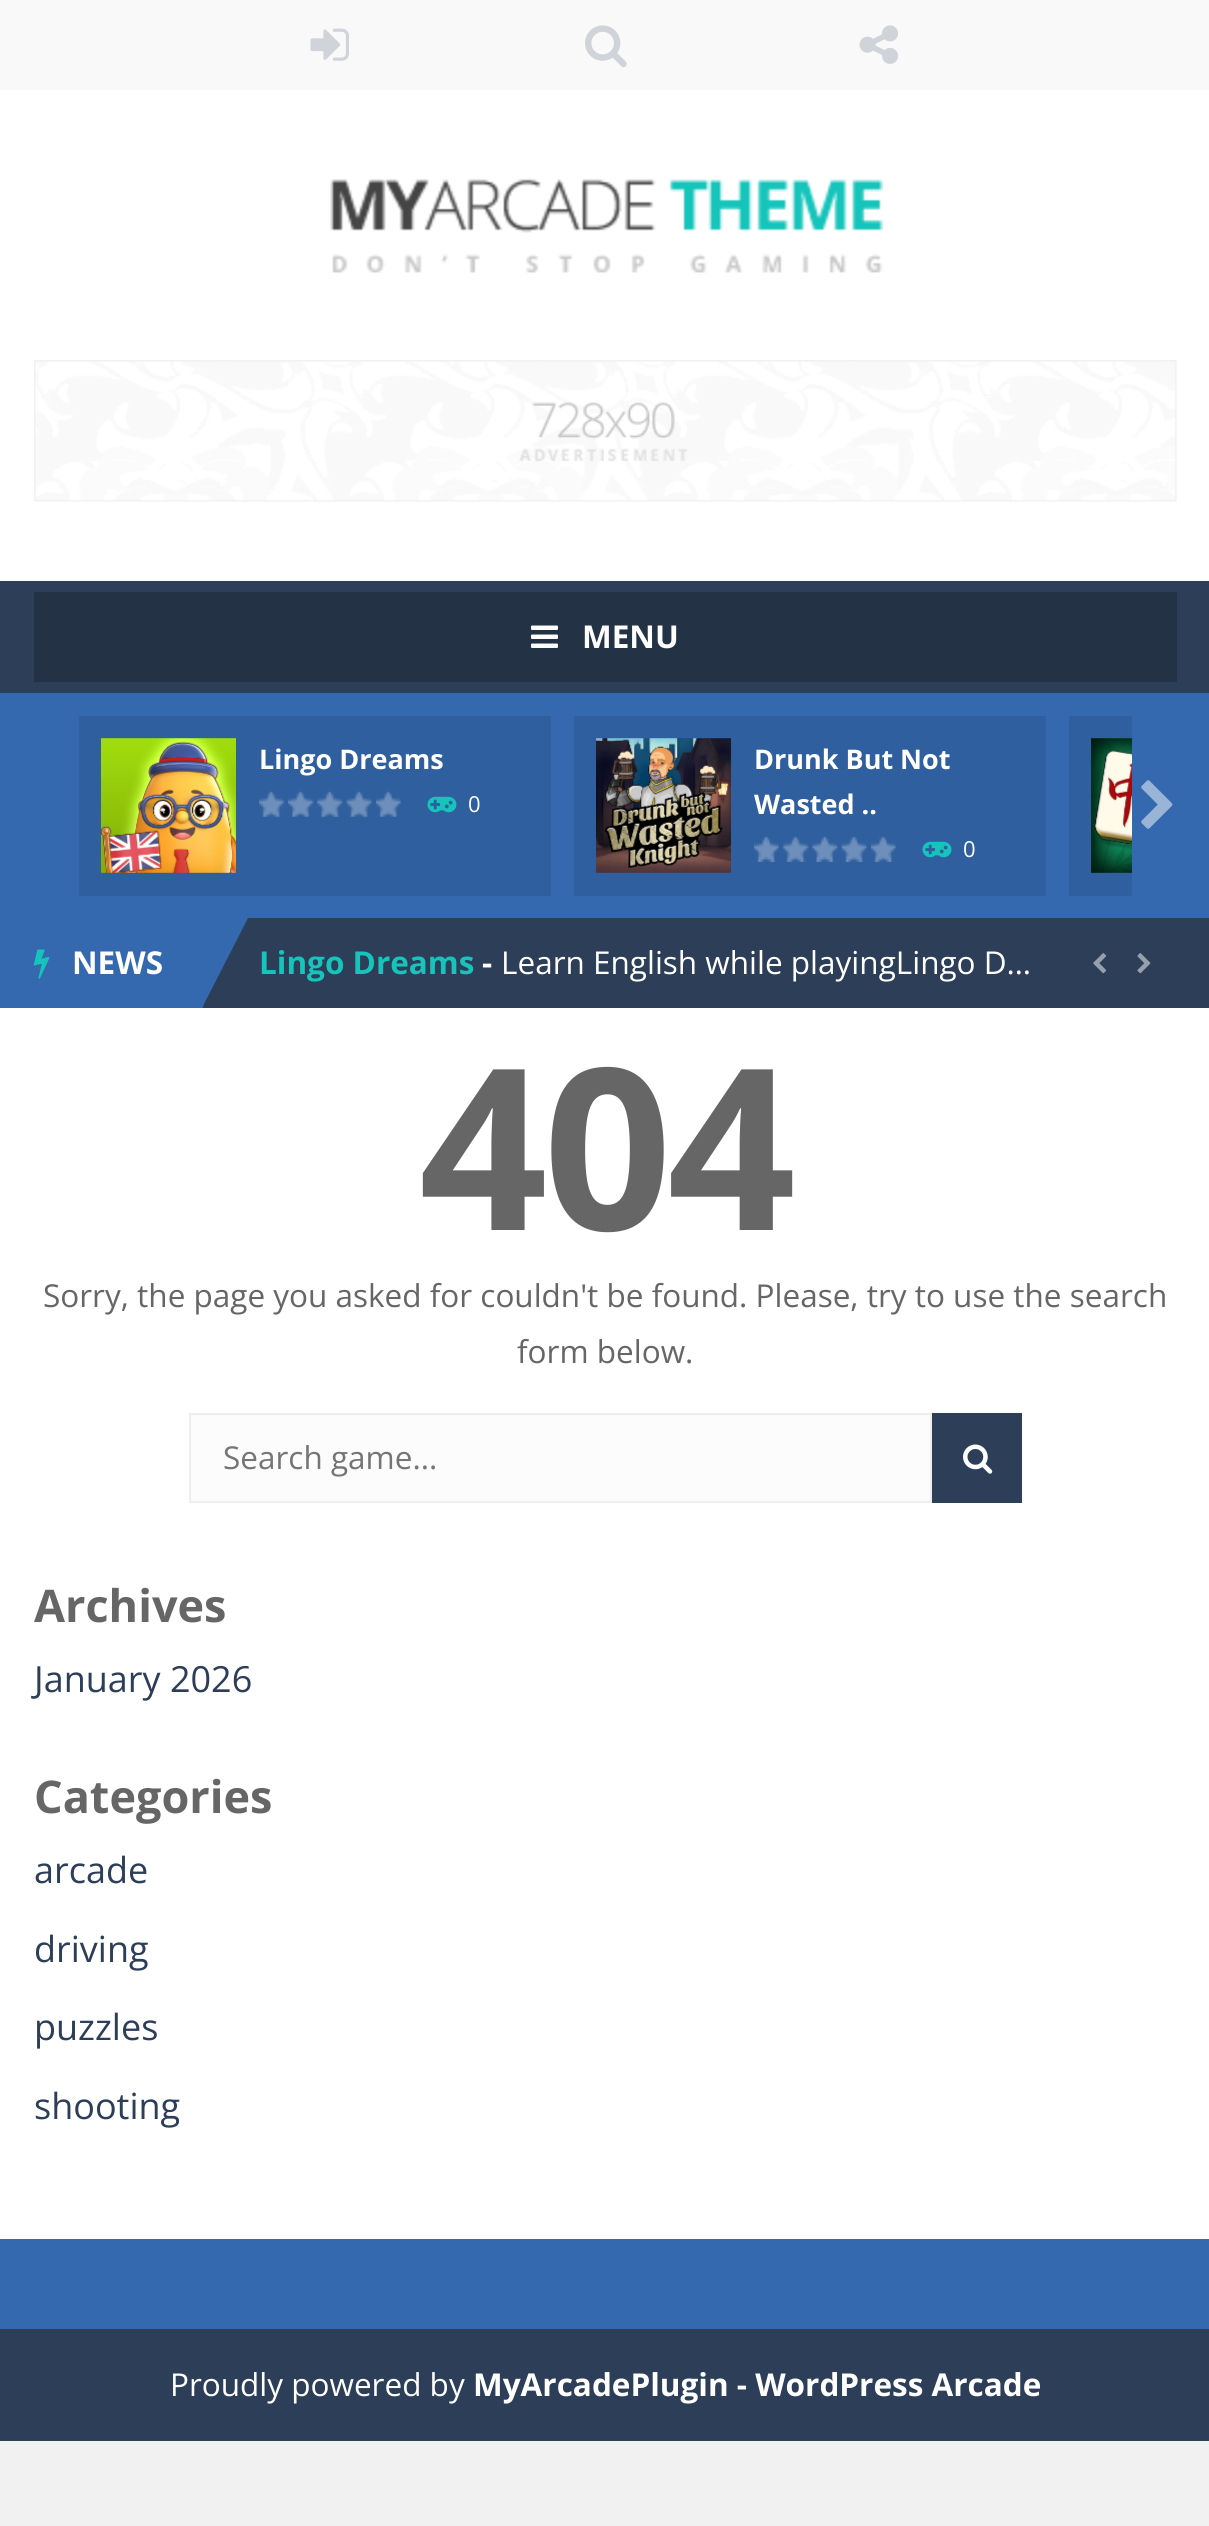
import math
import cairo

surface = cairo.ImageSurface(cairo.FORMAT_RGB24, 1209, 2526)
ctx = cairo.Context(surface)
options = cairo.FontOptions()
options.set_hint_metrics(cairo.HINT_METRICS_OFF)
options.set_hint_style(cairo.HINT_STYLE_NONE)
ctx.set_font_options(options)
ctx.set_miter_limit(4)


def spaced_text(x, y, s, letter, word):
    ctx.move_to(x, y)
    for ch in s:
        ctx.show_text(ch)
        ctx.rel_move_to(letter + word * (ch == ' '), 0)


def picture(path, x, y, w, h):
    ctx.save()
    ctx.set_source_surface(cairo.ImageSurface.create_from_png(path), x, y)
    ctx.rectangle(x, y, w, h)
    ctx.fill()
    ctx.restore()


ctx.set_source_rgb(0.945, 0.945, 0.945)
ctx.paint()
ctx.set_source_rgb(0.973, 0.973, 0.973)
ctx.rectangle(0, 0, 1209, 90)
ctx.fill()
picture("img1.png", 310, 28, 39, 33)
picture("img2.png", 585, 25, 42, 43)
picture("img3.png", 859, 25, 39, 39)
ctx.set_source_rgb(1, 1, 1)
ctx.rectangle(0, 90, 1209, 491)
ctx.fill()
picture("img4.png", 330, 178, 553, 95)
picture("img5.png", 34, 360, 1143, 142)
ctx.set_source_rgb(0.176, 0.243, 0.345)
ctx.rectangle(0, 581, 1209, 112)
ctx.fill()
ctx.set_source_rgb(0.141, 0.196, 0.275)
ctx.rectangle(34, 592, 1143, 90)
ctx.fill()
picture("img6.png", 531, 625, 27, 23)
ctx.select_font_face("Open Sans", cairo.FONT_SLANT_NORMAL, cairo.FONT_WEIGHT_BOLD)
ctx.set_font_size(31.5)
ctx.set_source_rgb(1, 1, 1)
ctx.move_to(582, 648)
ctx.show_text("MENU")
ctx.set_source_rgb(0.204, 0.412, 0.686)
ctx.rectangle(0, 693, 1209, 225)
ctx.fill()
ctx.set_source_rgb(0.184, 0.373, 0.62)
ctx.rectangle(79, 716, 472, 180)
ctx.fill()
picture("img7.png", 101, 738, 135, 135)
ctx.set_font_size(27)
ctx.set_source_rgb(1, 1, 1)
ctx.move_to(259, 769)
ctx.show_text("Lingo Dreams")
picture("img8.png", 259, 791, 26, 26)
picture("img9.png", 288, 791, 26, 26)
picture("img10.png", 317, 791, 26, 26)
picture("img11.png", 346, 791, 26, 26)
picture("img12.png", 376, 791, 25, 26)
picture("img13.png", 427, 796, 30, 17)
ctx.select_font_face("Open Sans")
ctx.set_font_size(22)
ctx.move_to(468, 812)
ctx.show_text("0")
ctx.set_source_rgb(0.184, 0.373, 0.62)
ctx.rectangle(574, 716, 472, 180)
ctx.fill()
picture("img14.png", 596, 738, 135, 135)
ctx.select_font_face("Open Sans", cairo.FONT_SLANT_NORMAL, cairo.FONT_WEIGHT_BOLD)
ctx.set_font_size(27)
ctx.set_source_rgb(1, 1, 1)
ctx.move_to(754, 769)
ctx.show_text("Drunk But Not")
ctx.move_to(754, 814)
ctx.show_text("Wasted ..")
picture("img15.png", 754, 836, 25, 26)
picture("img16.png", 782, 836, 27, 26)
picture("img17.png", 812, 836, 26, 26)
picture("img18.png", 841, 836, 26, 26)
picture("img19.png", 871, 836, 25, 26)
picture("img13.png", 922, 841, 30, 17)
ctx.select_font_face("Open Sans")
ctx.set_font_size(22)
ctx.move_to(963, 857)
ctx.show_text("0")
ctx.set_source_rgb(0.184, 0.373, 0.62)
ctx.rectangle(1069, 716, 63, 180)
ctx.fill()
picture("img20.png", 1091, 738, 41, 135)
picture("img21.png", 1141, 780, 32, 49)
ctx.set_source_rgb(0.176, 0.243, 0.345)
ctx.rectangle(203, 918, 1006, 90)
ctx.fill()
ctx.set_source_rgb(0.204, 0.412, 0.686)
ctx.rectangle(0, 918, 203, 90)
ctx.fill()
picture("img22.png", 33, 949, 17, 30)
ctx.select_font_face("Open Sans", cairo.FONT_SLANT_NORMAL, cairo.FONT_WEIGHT_BOLD)
ctx.set_font_size(31.5)
ctx.set_source_rgb(1, 1, 1)
ctx.move_to(72, 974)
ctx.show_text("NEWS")
ctx.set_source_rgb(0.204, 0.412, 0.686)
ctx.new_path()
ctx.move_to(202, 918)
ctx.line_to(248, 918)
ctx.line_to(202, 1008)
ctx.close_path()
ctx.fill()
ctx.set_source_rgb(0.086, 0.769, 0.733)
ctx.move_to(259, 974)
ctx.show_text("Lingo Dreams")
ctx.set_source_rgb(1, 1, 1)
ctx.move_to(482, 974)
ctx.show_text("-")
ctx.select_font_face("Open Sans")
ctx.move_to(501, 974)
ctx.show_text("Learn English while playingLingo D…")
picture("img23.png", 1093, 953, 14, 21)
picture("img24.png", 1137, 953, 14, 21)
ctx.rectangle(0, 1008, 1209, 1231)
ctx.fill()
ctx.select_font_face("Open Sans", cairo.FONT_SLANT_NORMAL, cairo.FONT_WEIGHT_BOLD)
ctx.set_font_size(225)
ctx.set_source_rgb(0.4, 0.4, 0.4)
spaced_text(419, 1230, "404", -4.5, 0)
ctx.select_font_face("Open Sans")
ctx.set_font_size(31.5)
ctx.move_to(43, 1307)
ctx.show_text("Sorry, the page you asked for couldn't be found. Please, try to use the search")
ctx.move_to(517, 1363)
ctx.show_text("form below.")
ctx.set_source_rgb(0.988, 0.988, 0.988)
ctx.rectangle(190, 1414, 741, 88)
ctx.fill_preserve()
ctx.set_source_rgb(0.933, 0.933, 0.933)
ctx.stroke()
ctx.set_source_rgb(0.459, 0.459, 0.459)
ctx.move_to(223, 1469)
ctx.show_text("Search game...")
ctx.set_source_rgb(0.176, 0.243, 0.345)
ctx.rectangle(932, 1413, 90, 90)
ctx.fill()
picture("img25.png", 963, 1444, 30, 30)
ctx.select_font_face("Open Sans", cairo.FONT_SLANT_NORMAL, cairo.FONT_WEIGHT_BOLD)
ctx.set_font_size(45)
ctx.set_source_rgb(0.4, 0.4, 0.4)
ctx.move_to(34, 1622)
ctx.show_text("Archives")
ctx.select_font_face("Open Sans")
ctx.set_font_size(36)
ctx.set_source_rgb(0.176, 0.243, 0.345)
ctx.move_to(34, 1692)
ctx.show_text("January 2026")
ctx.select_font_face("Open Sans", cairo.FONT_SLANT_NORMAL, cairo.FONT_WEIGHT_BOLD)
ctx.set_font_size(45)
ctx.set_source_rgb(0.4, 0.4, 0.4)
ctx.move_to(34, 1813)
ctx.show_text("Categories")
ctx.select_font_face("Open Sans")
ctx.set_font_size(36)
ctx.set_source_rgb(0.176, 0.243, 0.345)
ctx.move_to(34, 1883)
ctx.show_text("arcade")
ctx.move_to(34, 1962)
ctx.show_text("driving")
ctx.move_to(34, 2040)
ctx.show_text("puzzles")
ctx.move_to(34, 2119)
ctx.show_text("shooting")
ctx.set_source_rgb(0.204, 0.412, 0.686)
ctx.rectangle(0, 2239, 1209, 90)
ctx.fill()
ctx.set_source_rgb(0.176, 0.243, 0.345)
ctx.rectangle(0, 2329, 1209, 112)
ctx.fill()
ctx.set_font_size(31.5)
ctx.set_source_rgb(1, 1, 1)
ctx.move_to(170, 2396)
ctx.show_text("Proudly powered by")
ctx.select_font_face("Open Sans", cairo.FONT_SLANT_NORMAL, cairo.FONT_WEIGHT_BOLD)
ctx.move_to(473, 2396)
ctx.show_text("MyArcadePlugin - WordPress Arcade")
surface.write_to_png("page.png")
